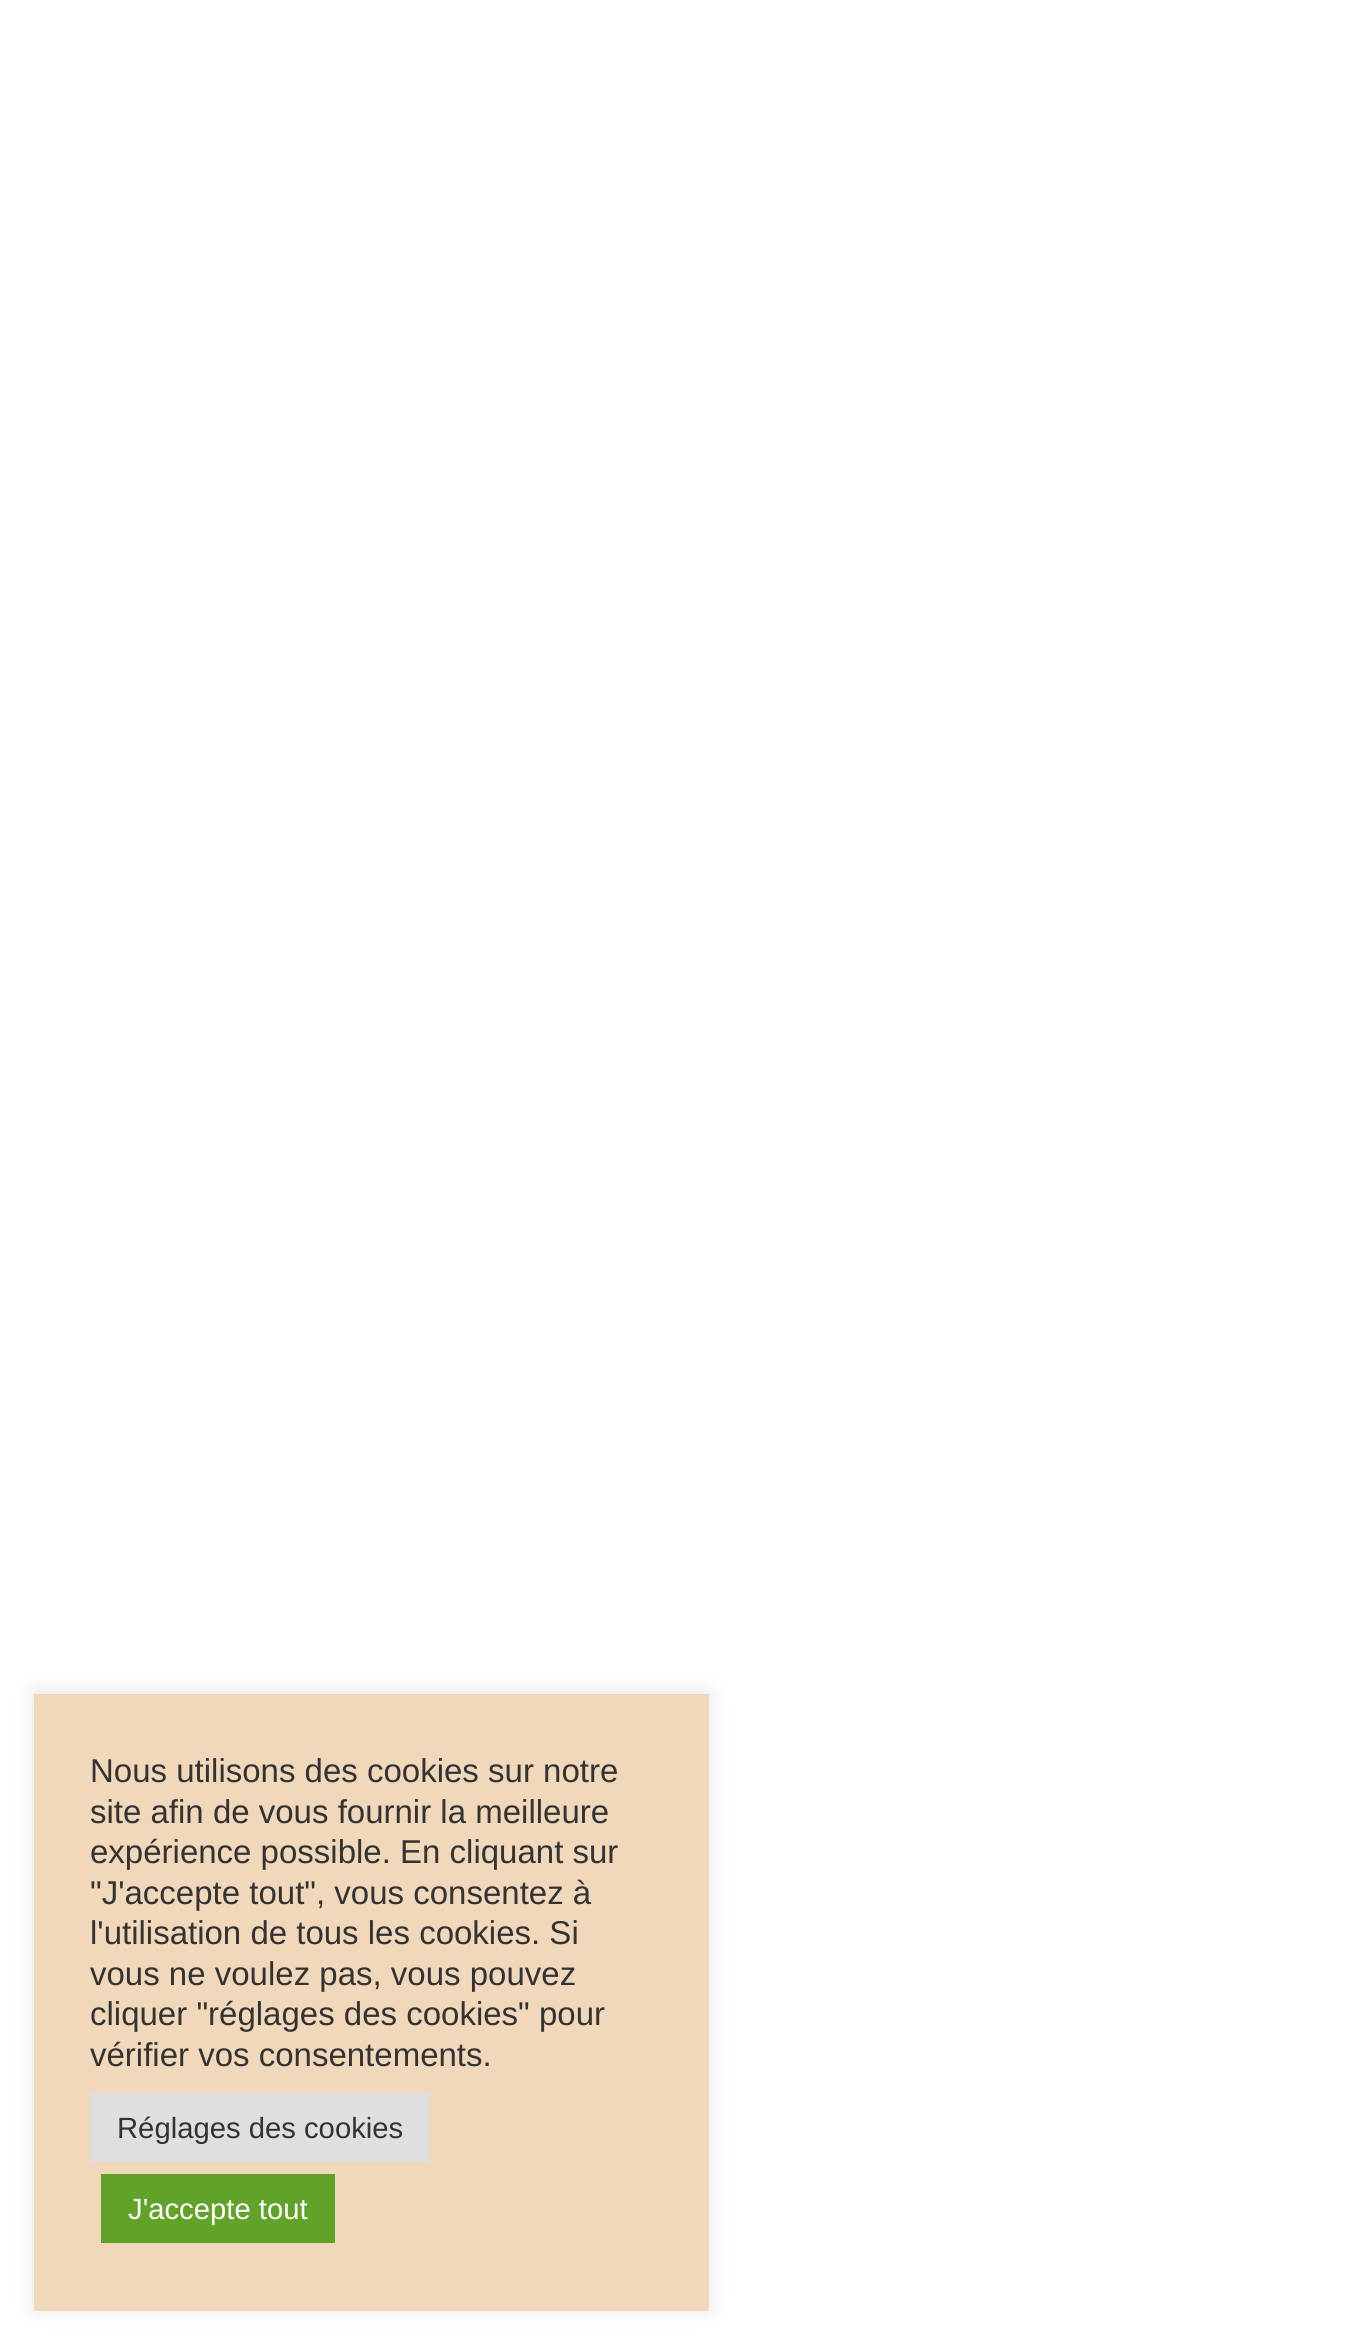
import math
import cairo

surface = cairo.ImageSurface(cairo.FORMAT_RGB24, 1361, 2343)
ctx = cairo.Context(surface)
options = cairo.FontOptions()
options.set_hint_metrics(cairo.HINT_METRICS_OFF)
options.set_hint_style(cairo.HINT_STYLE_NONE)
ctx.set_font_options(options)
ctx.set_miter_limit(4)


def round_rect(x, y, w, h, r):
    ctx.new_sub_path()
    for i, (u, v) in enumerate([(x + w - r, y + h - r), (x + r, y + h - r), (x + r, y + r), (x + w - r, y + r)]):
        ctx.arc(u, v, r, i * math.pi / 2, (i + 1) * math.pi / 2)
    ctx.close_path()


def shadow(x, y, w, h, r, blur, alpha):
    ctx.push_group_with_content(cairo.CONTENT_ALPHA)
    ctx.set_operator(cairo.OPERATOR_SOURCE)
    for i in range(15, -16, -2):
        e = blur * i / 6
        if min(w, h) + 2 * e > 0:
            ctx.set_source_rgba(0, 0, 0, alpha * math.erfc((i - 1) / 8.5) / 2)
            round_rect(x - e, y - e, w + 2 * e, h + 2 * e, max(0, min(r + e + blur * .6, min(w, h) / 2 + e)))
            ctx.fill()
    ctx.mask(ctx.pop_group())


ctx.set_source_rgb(1, 1, 1)
ctx.paint()
ctx.set_source_rgb(0.675, 0.671, 0.671)
shadow(34, 1692, 675, 617, 0, 11, 0.3)
ctx.set_source_rgb(0.949, 0.847, 0.729)
ctx.rectangle(34, 1694, 675, 617)
ctx.fill()
ctx.select_font_face("Liberation Sans")
ctx.set_font_size(33)
ctx.set_source_rgb(0.2, 0.2, 0.2)
ctx.move_to(90, 1782)
ctx.show_text("Nous utilisons des cookies sur notre")
ctx.move_to(90, 1823)
ctx.show_text("site afin de vous fournir la meilleure")
ctx.move_to(90, 1863)
ctx.show_text("expérience possible. En cliquant sur")
ctx.move_to(90, 1904)
ctx.show_text("\"J'accepte tout\", vous consentez à")
ctx.move_to(90, 1944)
ctx.show_text("l'utilisation de tous les cookies. Si")
ctx.move_to(90, 1985)
ctx.show_text("vous ne voulez pas, vous pouvez")
ctx.move_to(90, 2025)
ctx.show_text("cliquer \"réglages des cookies\" pour")
ctx.move_to(90, 2066)
ctx.show_text("vérifier vos consentements.")
ctx.set_source_rgb(0.871, 0.875, 0.878)
ctx.rectangle(90, 2093, 340, 69)
ctx.fill()
ctx.set_font_size(29.25)
ctx.set_source_rgb(0.2, 0.2, 0.2)
ctx.move_to(117, 2138)
ctx.show_text("Réglages des cookies")
ctx.set_source_rgb(0.38, 0.635, 0.161)
ctx.rectangle(101, 2174, 234, 69)
ctx.fill()
ctx.set_source_rgb(1, 1, 1)
ctx.move_to(128, 2219)
ctx.show_text("J'accepte tout")
surface.write_to_png("page.png")
